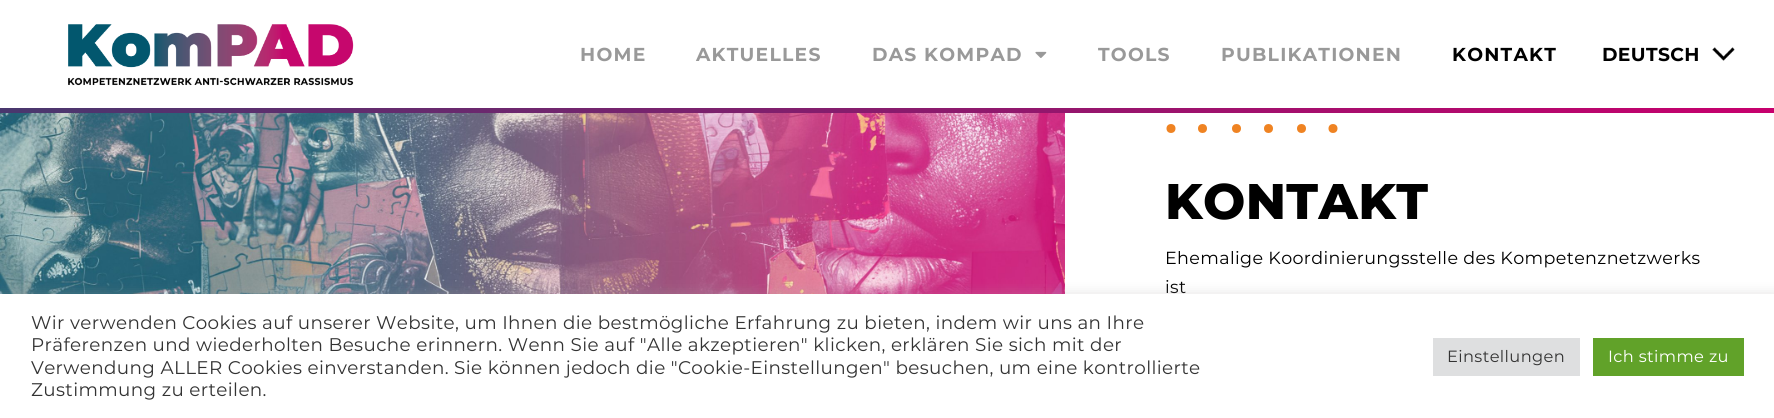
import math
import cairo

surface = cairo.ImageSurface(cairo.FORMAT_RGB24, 1774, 418)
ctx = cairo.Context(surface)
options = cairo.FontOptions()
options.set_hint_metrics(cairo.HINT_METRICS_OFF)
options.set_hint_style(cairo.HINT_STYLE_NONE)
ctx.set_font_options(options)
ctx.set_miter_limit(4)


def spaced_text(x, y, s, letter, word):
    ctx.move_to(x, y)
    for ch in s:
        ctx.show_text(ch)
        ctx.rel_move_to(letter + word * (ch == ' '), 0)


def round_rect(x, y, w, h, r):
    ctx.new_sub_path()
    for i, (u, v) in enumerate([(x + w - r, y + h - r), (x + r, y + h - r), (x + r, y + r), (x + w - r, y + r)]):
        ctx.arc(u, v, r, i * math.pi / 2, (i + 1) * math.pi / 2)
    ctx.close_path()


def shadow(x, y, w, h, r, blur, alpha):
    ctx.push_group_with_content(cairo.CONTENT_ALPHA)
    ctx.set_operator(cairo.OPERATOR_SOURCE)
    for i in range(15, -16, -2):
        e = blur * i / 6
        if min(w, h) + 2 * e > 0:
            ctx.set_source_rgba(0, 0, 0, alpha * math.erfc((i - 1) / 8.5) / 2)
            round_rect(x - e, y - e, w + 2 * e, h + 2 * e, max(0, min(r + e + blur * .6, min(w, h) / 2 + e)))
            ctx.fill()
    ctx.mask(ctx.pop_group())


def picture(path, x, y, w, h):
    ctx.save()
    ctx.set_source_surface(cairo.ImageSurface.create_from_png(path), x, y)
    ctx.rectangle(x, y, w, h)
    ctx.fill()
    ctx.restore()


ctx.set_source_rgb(1, 1, 1)
ctx.paint()
picture("img1.png", 68, 24, 286, 62)
ctx.select_font_face("Montserrat", cairo.FONT_SLANT_NORMAL, cairo.FONT_WEIGHT_BOLD)
ctx.set_font_size(18.75)
ctx.set_source_rgb(0.6, 0.6, 0.6)
spaced_text(580, 61, "HOME", 1.25, 0)
spaced_text(696, 61, "AKTUELLES", 1.25, 0)
spaced_text(872, 61, "DAS KOMPAD", 1.25, 0)
picture("img2.png", 1035, 51, 12, 7)
spaced_text(1098, 61, "TOOLS", 1.25, 0)
spaced_text(1221, 61, "PUBLIKATIONEN", 1.25, 0)
ctx.set_source_rgb(0, 0, 0)
spaced_text(1452, 61, "KONTAKT", 1.25, 0)
spaced_text(1602, 61, "DEUTSCH", 0.38, 0)
picture("img3.png", 1712, 47, 23, 14)
gradient = cairo.LinearGradient(0, 110, 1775, 110)
gradient.add_color_stop_rgba(0, 0, 0.341, 0.431, 1)
gradient.add_color_stop_rgba(0, 0.286, 0.216, 0.431, 1)
gradient.add_color_stop_rgba(1, 0.78, 0, 0.427, 1)
ctx.set_source(gradient)
ctx.rectangle(0, 108, 1774, 5)
ctx.fill()
picture("img4.png", 0, 113, 1065, 181)
ctx.set_source_rgb(0.937, 0.514, 0.133)
ctx.arc(1171, 128.5, 4.5, 0, 2 * math.pi)
ctx.fill()
ctx.arc(1202.5, 128.5, 4.5, 0, 2 * math.pi)
ctx.fill()
ctx.arc(1236.5, 128.5, 4.5, 0, 2 * math.pi)
ctx.fill()
ctx.arc(1268.5, 128.5, 4.5, 0, 2 * math.pi)
ctx.fill()
ctx.arc(1301.5, 128.5, 4.5, 0, 2 * math.pi)
ctx.fill()
ctx.arc(1333, 128.5, 4.5, 0, 2 * math.pi)
ctx.fill()
ctx.select_font_face("Montserrat ExtraBold")
ctx.set_font_size(50)
ctx.set_source_rgb(0, 0, 0)
spaced_text(1165, 219, "KONTAKT", 0.38, 0)
ctx.select_font_face("Montserrat")
ctx.set_font_size(17.5)
spaced_text(1165, 264, "Ehemalige Koordinierungsstelle des Kompetenznetzwerks", 0.38, 0)
spaced_text(1165, 293, "ist", 0.38, 0)
ctx.set_source_rgb(0.675, 0.671, 0.671)
shadow(0, 293, 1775, 125, 0, 6, 0.3)
ctx.set_source_rgb(1, 1, 1)
ctx.rectangle(0, 294, 1774, 124)
ctx.fill()
ctx.set_font_size(18.33)
ctx.set_source_rgb(0.2, 0.2, 0.2)
spaced_text(31, 329, "Wir verwenden Cookies auf unserer Website, um Ihnen die bestmögliche Erfahrung zu bieten, indem wir uns an Ihre", 0.38, 0)
spaced_text(31, 351, "Präferenzen und wiederholten Besuche erinnern. Wenn Sie auf \"Alle akzeptieren\" klicken, erklären Sie sich mit der", 0.38, 0)
spaced_text(31, 374, "Verwendung ALLER Cookies einverstanden. Sie können jedoch die \"Cookie-Einstellungen\" besuchen, um eine kontrollierte", 0.38, 0)
spaced_text(31, 396, "Zustimmung zu erteilen.", 0.38, 0)
ctx.set_source_rgb(0.871, 0.875, 0.878)
ctx.rectangle(1433, 338, 147, 38)
ctx.fill()
ctx.set_font_size(16.25)
ctx.set_source_rgb(0.2, 0.2, 0.2)
spaced_text(1447, 362, "Einstellungen", 0.38, 0)
ctx.set_source_rgb(0.38, 0.635, 0.161)
ctx.rectangle(1593, 338, 151, 38)
ctx.fill()
ctx.set_source_rgb(1, 1, 1)
spaced_text(1608, 362, "Ich stimme zu", 0.38, 0)
surface.write_to_png("page.png")
